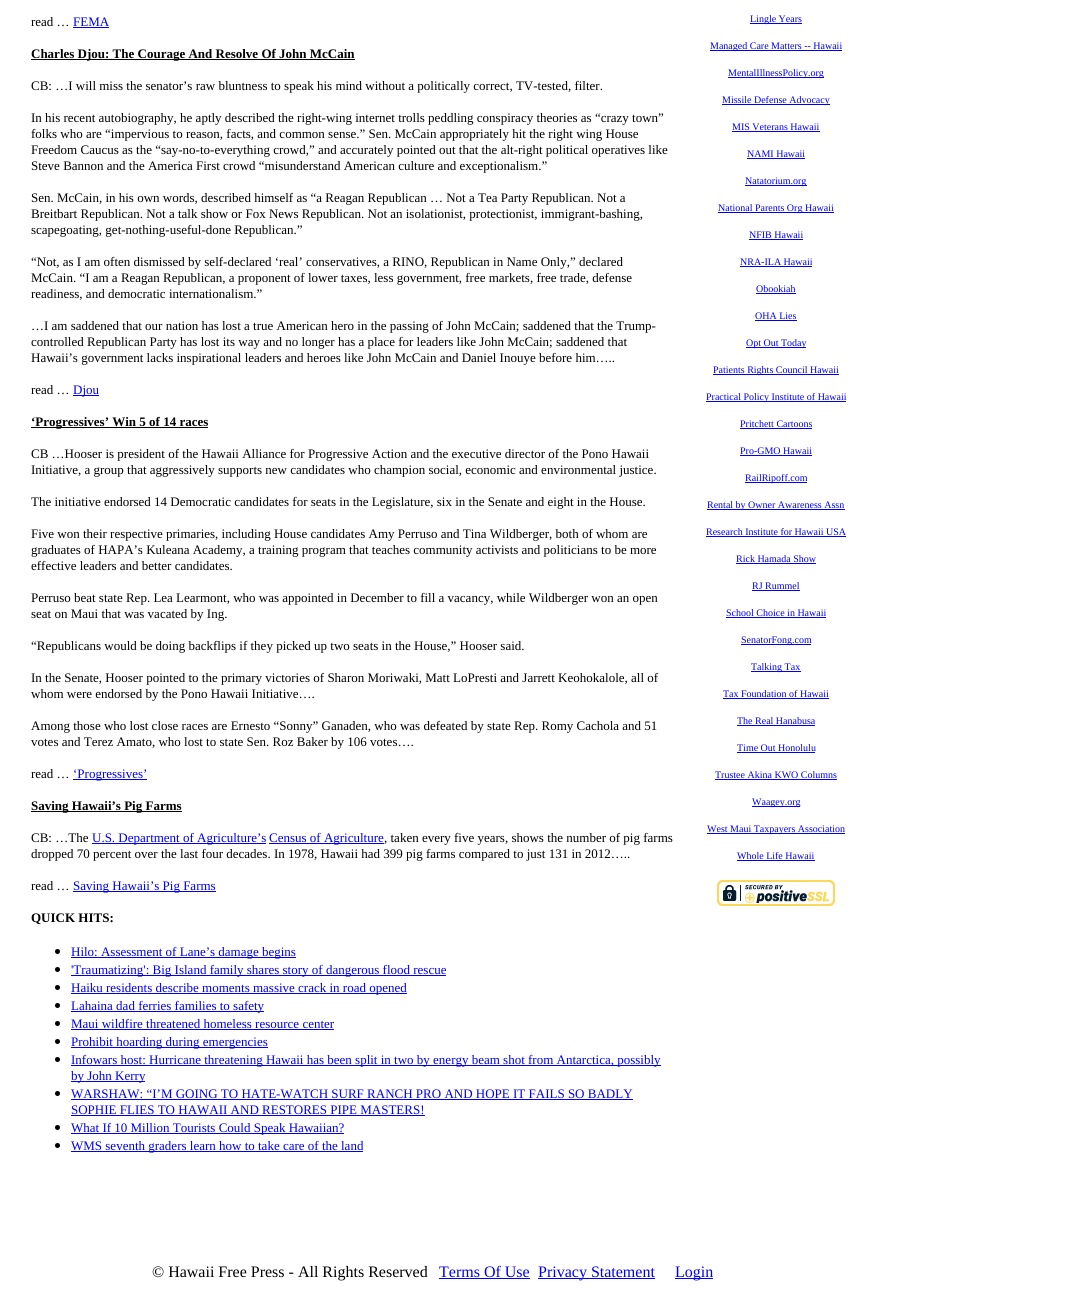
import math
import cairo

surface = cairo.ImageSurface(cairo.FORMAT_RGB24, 1090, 1297)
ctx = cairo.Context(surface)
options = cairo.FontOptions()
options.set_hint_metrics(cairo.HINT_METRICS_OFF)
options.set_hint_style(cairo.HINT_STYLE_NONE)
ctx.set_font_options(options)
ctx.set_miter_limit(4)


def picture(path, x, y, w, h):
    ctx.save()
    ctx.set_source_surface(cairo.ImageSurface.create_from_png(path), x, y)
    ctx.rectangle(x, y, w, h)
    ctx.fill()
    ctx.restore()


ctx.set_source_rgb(1, 1, 1)
ctx.paint()
ctx.select_font_face("Liberation Serif")
ctx.set_font_size(13)
ctx.set_source_rgb(0, 0, 0)
ctx.move_to(31, 26)
ctx.show_text("read …")
ctx.set_source_rgb(0, 0, 0.933)
ctx.move_to(73, 26)
ctx.show_text("FEMA")
ctx.rectangle(73, 27, 36, 1)
ctx.fill()
ctx.set_source_rgb(0, 0, 0)
ctx.rectangle(31, 59, 324, 1)
ctx.fill()
ctx.select_font_face("Liberation Serif", cairo.FONT_SLANT_NORMAL, cairo.FONT_WEIGHT_BOLD)
ctx.move_to(31, 58)
ctx.show_text("Charles Djou: The Courage And Resolve Of John McCain")
ctx.select_font_face("Liberation Serif")
ctx.move_to(31, 90)
ctx.show_text("CB: …I will miss the senator’s raw bluntness to speak his mind without a politically correct, TV-tested, filter.")
ctx.move_to(31, 122)
ctx.show_text("In his recent autobiography, he aptly described the right-wing internet trolls peddling conspiracy theories as “crazy town”")
ctx.move_to(31, 138)
ctx.show_text("folks who are “impervious to reason, facts, and common sense.” Sen. McCain appropriately hit the right wing House")
ctx.move_to(31, 154)
ctx.show_text("Freedom Caucus as the “say-no-to-everything crowd,” and accurately pointed out that the alt-right political operatives like")
ctx.move_to(31, 170)
ctx.show_text("Steve Bannon and the America First crowd “misunderstand American culture and exceptionalism.”")
ctx.move_to(31, 202)
ctx.show_text("Sen. McCain, in his own words, described himself as “a Reagan Republican … Not a Tea Party Republican. Not a")
ctx.move_to(31, 218)
ctx.show_text("Breitbart Republican. Not a talk show or Fox News Republican. Not an isolationist, protectionist, immigrant-bashing,")
ctx.move_to(31, 234)
ctx.show_text("scapegoating, get-nothing-useful-done Republican.”")
ctx.move_to(31, 266)
ctx.show_text("“Not, as I am often dismissed by self-declared ‘real’ conservatives, a RINO, Republican in Name Only,” declared")
ctx.move_to(31, 282)
ctx.show_text("McCain. “I am a Reagan Republican, a proponent of lower taxes, less government, free markets, free trade, defense")
ctx.move_to(31, 298)
ctx.show_text("readiness, and democratic internationalism.”")
ctx.move_to(31, 330)
ctx.show_text("…I am saddened that our nation has lost a true American hero in the passing of John McCain; saddened that the Trump-")
ctx.move_to(31, 346)
ctx.show_text("controlled Republican Party has lost its way and no longer has a place for leaders like John McCain; saddened that")
ctx.move_to(31, 362)
ctx.show_text("Hawaii’s government lacks inspirational leaders and heroes like John McCain and Daniel Inouye before him…..")
ctx.move_to(31, 394)
ctx.show_text("read …")
ctx.set_source_rgb(0, 0, 0.933)
ctx.rectangle(73, 395, 26, 1)
ctx.fill()
ctx.move_to(73, 394)
ctx.show_text("Djou")
ctx.set_source_rgb(0, 0, 0)
ctx.rectangle(31, 427, 177, 1)
ctx.fill()
ctx.select_font_face("Liberation Serif", cairo.FONT_SLANT_NORMAL, cairo.FONT_WEIGHT_BOLD)
ctx.move_to(31, 426)
ctx.show_text("‘Progressives’ Win 5 of 14 races")
ctx.select_font_face("Liberation Serif")
ctx.move_to(31, 458)
ctx.show_text("CB …Hooser is president of the Hawaii Alliance for Progressive Action and the executive director of the Pono Hawaii")
ctx.move_to(31, 474)
ctx.show_text("Initiative, a group that aggressively supports new candidates who champion social, economic and environmental justice.")
ctx.move_to(31, 506)
ctx.show_text("The initiative endorsed 14 Democratic candidates for seats in the Legislature, six in the Senate and eight in the House.")
ctx.move_to(31, 538)
ctx.show_text("Five won their respective primaries, including House candidates Amy Perruso and Tina Wildberger, both of whom are")
ctx.move_to(31, 554)
ctx.show_text("graduates of HAPA’s Kuleana Academy, a training program that teaches community activists and politicians to be more")
ctx.move_to(31, 570)
ctx.show_text("effective leaders and better candidates.")
ctx.move_to(31, 602)
ctx.show_text("Perruso beat state Rep. Lea Learmont, who was appointed in December to fill a vacancy, while Wildberger won an open")
ctx.move_to(31, 618)
ctx.show_text("seat on Maui that was vacated by Ing.")
ctx.move_to(31, 650)
ctx.show_text("“Republicans would be doing backflips if they picked up two seats in the House,” Hooser said.")
ctx.move_to(31, 682)
ctx.show_text("In the Senate, Hooser pointed to the primary victories of Sharon Moriwaki, Matt LoPresti and Jarrett Keohokalole, all of")
ctx.move_to(31, 698)
ctx.show_text("whom were endorsed by the Pono Hawaii Initiative….")
ctx.move_to(31, 730)
ctx.show_text("Among those who lost close races are Ernesto “Sonny” Ganaden, who was defeated by state Rep. Romy Cachola and 51")
ctx.move_to(31, 746)
ctx.show_text("votes and Terez Amato, who lost to state Sen. Roz Baker by 106 votes….")
ctx.move_to(31, 778)
ctx.show_text("read …")
ctx.set_source_rgb(0, 0, 0.933)
ctx.rectangle(73, 779, 74, 1)
ctx.fill()
ctx.move_to(73, 778)
ctx.show_text("‘Progressives’")
ctx.set_source_rgb(0, 0, 0)
ctx.rectangle(31, 811, 151, 1)
ctx.fill()
ctx.select_font_face("Liberation Serif", cairo.FONT_SLANT_NORMAL, cairo.FONT_WEIGHT_BOLD)
ctx.move_to(31, 810)
ctx.show_text("Saving Hawaii’s Pig Farms")
ctx.select_font_face("Liberation Serif")
ctx.move_to(31, 842)
ctx.show_text("CB: …The")
ctx.set_source_rgb(0, 0, 0.933)
ctx.rectangle(92, 843, 174, 1)
ctx.fill()
ctx.move_to(92, 842)
ctx.show_text("U.S. Department of Agriculture’s")
ctx.rectangle(269, 843, 115, 1)
ctx.fill()
ctx.move_to(269, 842)
ctx.show_text("Census of Agriculture")
ctx.set_source_rgb(0, 0, 0)
ctx.move_to(384, 842)
ctx.show_text(", taken every five years, shows the number of pig farms")
ctx.move_to(31, 858)
ctx.show_text("dropped 70 percent over the last four decades. In 1978, Hawaii had 399 pig farms compared to just 131 in 2012…..")
ctx.move_to(31, 890)
ctx.show_text("read …")
ctx.set_source_rgb(0, 0, 0.933)
ctx.rectangle(73, 891, 143, 1)
ctx.fill()
ctx.move_to(73, 890)
ctx.show_text("Saving Hawaii’s Pig Farms")
ctx.select_font_face("Liberation Serif", cairo.FONT_SLANT_NORMAL, cairo.FONT_WEIGHT_BOLD)
ctx.set_source_rgb(0, 0, 0)
ctx.move_to(31, 922)
ctx.show_text("QUICK HITS:")
ctx.new_path()
ctx.arc(57.5, 951.5, 2.5, 0, 2 * math.pi)
ctx.fill()
ctx.set_source_rgb(0, 0, 0.933)
ctx.rectangle(71, 957, 225, 1)
ctx.fill()
ctx.select_font_face("Liberation Serif")
ctx.move_to(71, 956)
ctx.show_text("Hilo: Assessment of Lane’s damage begins")
ctx.set_source_rgb(0, 0, 0)
ctx.new_path()
ctx.arc(57.5, 969.5, 2.5, 0, 2 * math.pi)
ctx.fill()
ctx.set_source_rgb(0, 0, 0.933)
ctx.rectangle(71, 975, 375, 1)
ctx.fill()
ctx.move_to(71, 974)
ctx.show_text("'Traumatizing': Big Island family shares story of dangerous flood rescue")
ctx.set_source_rgb(0, 0, 0)
ctx.new_path()
ctx.arc(57.5, 987.5, 2.5, 0, 2 * math.pi)
ctx.fill()
ctx.set_source_rgb(0, 0, 0.933)
ctx.rectangle(71, 993, 336, 1)
ctx.fill()
ctx.move_to(71, 992)
ctx.show_text("Haiku residents describe moments massive crack in road opened")
ctx.set_source_rgb(0, 0, 0)
ctx.new_path()
ctx.arc(57.5, 1005.5, 2.5, 0, 2 * math.pi)
ctx.fill()
ctx.set_source_rgb(0, 0, 0.933)
ctx.rectangle(71, 1011, 193, 1)
ctx.fill()
ctx.move_to(71, 1010)
ctx.show_text("Lahaina dad ferries families to safety")
ctx.set_source_rgb(0, 0, 0)
ctx.new_path()
ctx.arc(57.5, 1023.5, 2.5, 0, 2 * math.pi)
ctx.fill()
ctx.set_source_rgb(0, 0, 0.933)
ctx.move_to(71, 1028)
ctx.show_text("Maui wildfire threatened homeless resource center")
ctx.rectangle(71, 1029, 263, 1)
ctx.fill()
ctx.set_source_rgb(0, 0, 0)
ctx.arc(57.5, 1041.5, 2.5, 0, 2 * math.pi)
ctx.fill()
ctx.set_source_rgb(0, 0, 0.933)
ctx.rectangle(71, 1047, 197, 1)
ctx.fill()
ctx.move_to(71, 1046)
ctx.show_text("Prohibit hoarding during emergencies")
ctx.set_source_rgb(0, 0, 0)
ctx.new_path()
ctx.arc(57.5, 1059.5, 2.5, 0, 2 * math.pi)
ctx.fill()
ctx.set_source_rgb(0, 0, 0.933)
ctx.rectangle(71, 1065, 590, 1)
ctx.fill()
ctx.move_to(71, 1064)
ctx.show_text("Infowars host: Hurricane threatening Hawaii has been split in two by energy beam shot from Antarctica, possibly")
ctx.rectangle(71, 1081, 74, 1)
ctx.fill()
ctx.move_to(71, 1080)
ctx.show_text("by John Kerry")
ctx.set_source_rgb(0, 0, 0)
ctx.new_path()
ctx.arc(57.5, 1093.5, 2.5, 0, 2 * math.pi)
ctx.fill()
ctx.set_source_rgb(0, 0, 0.933)
ctx.move_to(71, 1098)
ctx.show_text("WARSHAW: “I’M GOING TO HATE-WATCH SURF RANCH PRO AND HOPE IT FAILS SO BADLY")
ctx.rectangle(71, 1099, 562, 1)
ctx.fill()
ctx.move_to(71, 1114)
ctx.show_text("SOPHIE FLIES TO HAWAII AND RESTORES PIPE MASTERS!")
ctx.rectangle(71, 1115, 354, 1)
ctx.fill()
ctx.set_source_rgb(0, 0, 0)
ctx.arc(57.5, 1127.5, 2.5, 0, 2 * math.pi)
ctx.fill()
ctx.set_source_rgb(0, 0, 0.933)
ctx.rectangle(71, 1133, 273, 1)
ctx.fill()
ctx.move_to(71, 1132)
ctx.show_text("What If 10 Million Tourists Could Speak Hawaiian?")
ctx.set_source_rgb(0, 0, 0)
ctx.new_path()
ctx.arc(57.5, 1145.5, 2.5, 0, 2 * math.pi)
ctx.fill()
ctx.set_source_rgb(0, 0, 0.933)
ctx.rectangle(71, 1151, 292, 1)
ctx.fill()
ctx.move_to(71, 1150)
ctx.show_text("WMS seventh graders learn how to take care of the land")
ctx.rectangle(750, 23, 52, 1)
ctx.fill()
ctx.set_font_size(10)
ctx.move_to(750, 22)
ctx.show_text("Lingle Years")
ctx.rectangle(710, 50, 132, 1)
ctx.fill()
ctx.move_to(710, 49)
ctx.show_text("Managed Care Matters -- Hawaii")
ctx.rectangle(728, 77, 96, 1)
ctx.fill()
ctx.move_to(728, 76)
ctx.show_text("MentalIllnessPolicy.org")
ctx.rectangle(722, 104, 108, 1)
ctx.fill()
ctx.move_to(722, 103)
ctx.show_text("Missile Defense Advocacy")
ctx.move_to(732, 130)
ctx.show_text("MIS Veterans Hawaii")
ctx.rectangle(732, 131, 88, 1)
ctx.fill()
ctx.move_to(747, 157)
ctx.show_text("NAMI Hawaii")
ctx.rectangle(747, 158, 58, 1)
ctx.fill()
ctx.rectangle(745, 185, 62, 1)
ctx.fill()
ctx.move_to(745, 184)
ctx.show_text("Natatorium.org")
ctx.rectangle(718, 212, 116, 1)
ctx.fill()
ctx.move_to(718, 211)
ctx.show_text("National Parents Org Hawaii")
ctx.move_to(749, 238)
ctx.show_text("NFIB Hawaii")
ctx.rectangle(749, 239, 54, 1)
ctx.fill()
ctx.move_to(740, 265)
ctx.show_text("NRA-ILA Hawaii")
ctx.rectangle(740, 266, 72, 1)
ctx.fill()
ctx.move_to(756, 292)
ctx.show_text("Obookiah")
ctx.rectangle(756, 293, 40, 1)
ctx.fill()
ctx.move_to(755, 319)
ctx.show_text("OHA Lies")
ctx.rectangle(755, 320, 42, 1)
ctx.fill()
ctx.rectangle(746, 347, 60, 1)
ctx.fill()
ctx.move_to(746, 346)
ctx.show_text("Opt Out Today")
ctx.rectangle(713, 374, 126, 1)
ctx.fill()
ctx.move_to(713, 373)
ctx.show_text("Patients Rights Council Hawaii")
ctx.rectangle(706, 401, 140, 1)
ctx.fill()
ctx.move_to(706, 400)
ctx.show_text("Practical Policy Institute of Hawaii")
ctx.move_to(740, 427)
ctx.show_text("Pritchett Cartoons")
ctx.rectangle(740, 428, 72, 1)
ctx.fill()
ctx.move_to(740, 454)
ctx.show_text("Pro-GMO Hawaii")
ctx.rectangle(740, 455, 72, 1)
ctx.fill()
ctx.rectangle(745, 482, 62, 1)
ctx.fill()
ctx.move_to(745, 481)
ctx.show_text("RailRipoff.com")
ctx.rectangle(707, 509, 138, 1)
ctx.fill()
ctx.move_to(707, 508)
ctx.show_text("Rental by Owner Awareness Assn")
ctx.move_to(706, 535)
ctx.show_text("Research Institute for Hawaii USA")
ctx.rectangle(706, 536, 140, 1)
ctx.fill()
ctx.move_to(736, 562)
ctx.show_text("Rick Hamada Show")
ctx.rectangle(736, 563, 80, 1)
ctx.fill()
ctx.move_to(752, 589)
ctx.show_text("RJ Rummel")
ctx.rectangle(752, 590, 48, 1)
ctx.fill()
ctx.move_to(726, 616)
ctx.show_text("School Choice in Hawaii")
ctx.rectangle(726, 617, 100, 1)
ctx.fill()
ctx.rectangle(741, 644, 70, 1)
ctx.fill()
ctx.move_to(741, 643)
ctx.show_text("SenatorFong.com")
ctx.rectangle(751, 671, 50, 1)
ctx.fill()
ctx.move_to(751, 670)
ctx.show_text("Talking Tax")
ctx.move_to(723, 697)
ctx.show_text("Tax Foundation of Hawaii")
ctx.rectangle(723, 698, 106, 1)
ctx.fill()
ctx.move_to(737, 724)
ctx.show_text("The Real Hanabusa")
ctx.rectangle(737, 725, 78, 1)
ctx.fill()
ctx.move_to(737, 751)
ctx.show_text("Time Out Honolulu")
ctx.rectangle(737, 752, 78, 1)
ctx.fill()
ctx.move_to(715, 778)
ctx.show_text("Trustee Akina KWO Columns")
ctx.rectangle(715, 779, 122, 1)
ctx.fill()
ctx.rectangle(752, 806, 48, 1)
ctx.fill()
ctx.move_to(752, 805)
ctx.show_text("Waagey.org")
ctx.rectangle(707, 833, 138, 1)
ctx.fill()
ctx.move_to(707, 832)
ctx.show_text("West Maui Taxpayers Association")
ctx.move_to(737, 859)
ctx.show_text("Whole Life Hawaii")
ctx.rectangle(737, 860, 78, 1)
ctx.fill()
picture("img1.png", 716, 880, 119, 26)
ctx.set_font_size(16)
ctx.set_source_rgb(0, 0, 0)
ctx.move_to(152, 1277)
ctx.show_text("© Hawaii Free Press - All Rights Reserved")
ctx.set_source_rgb(0, 0, 0.933)
ctx.move_to(439, 1277)
ctx.show_text("Terms Of Use")
ctx.rectangle(439, 1278, 91, 1)
ctx.fill()
ctx.rectangle(538, 1278, 117, 1)
ctx.fill()
ctx.move_to(538, 1277)
ctx.show_text("Privacy Statement")
ctx.rectangle(675, 1278, 38, 1)
ctx.fill()
ctx.move_to(675, 1277)
ctx.show_text("Login")
surface.write_to_png("page.png")
